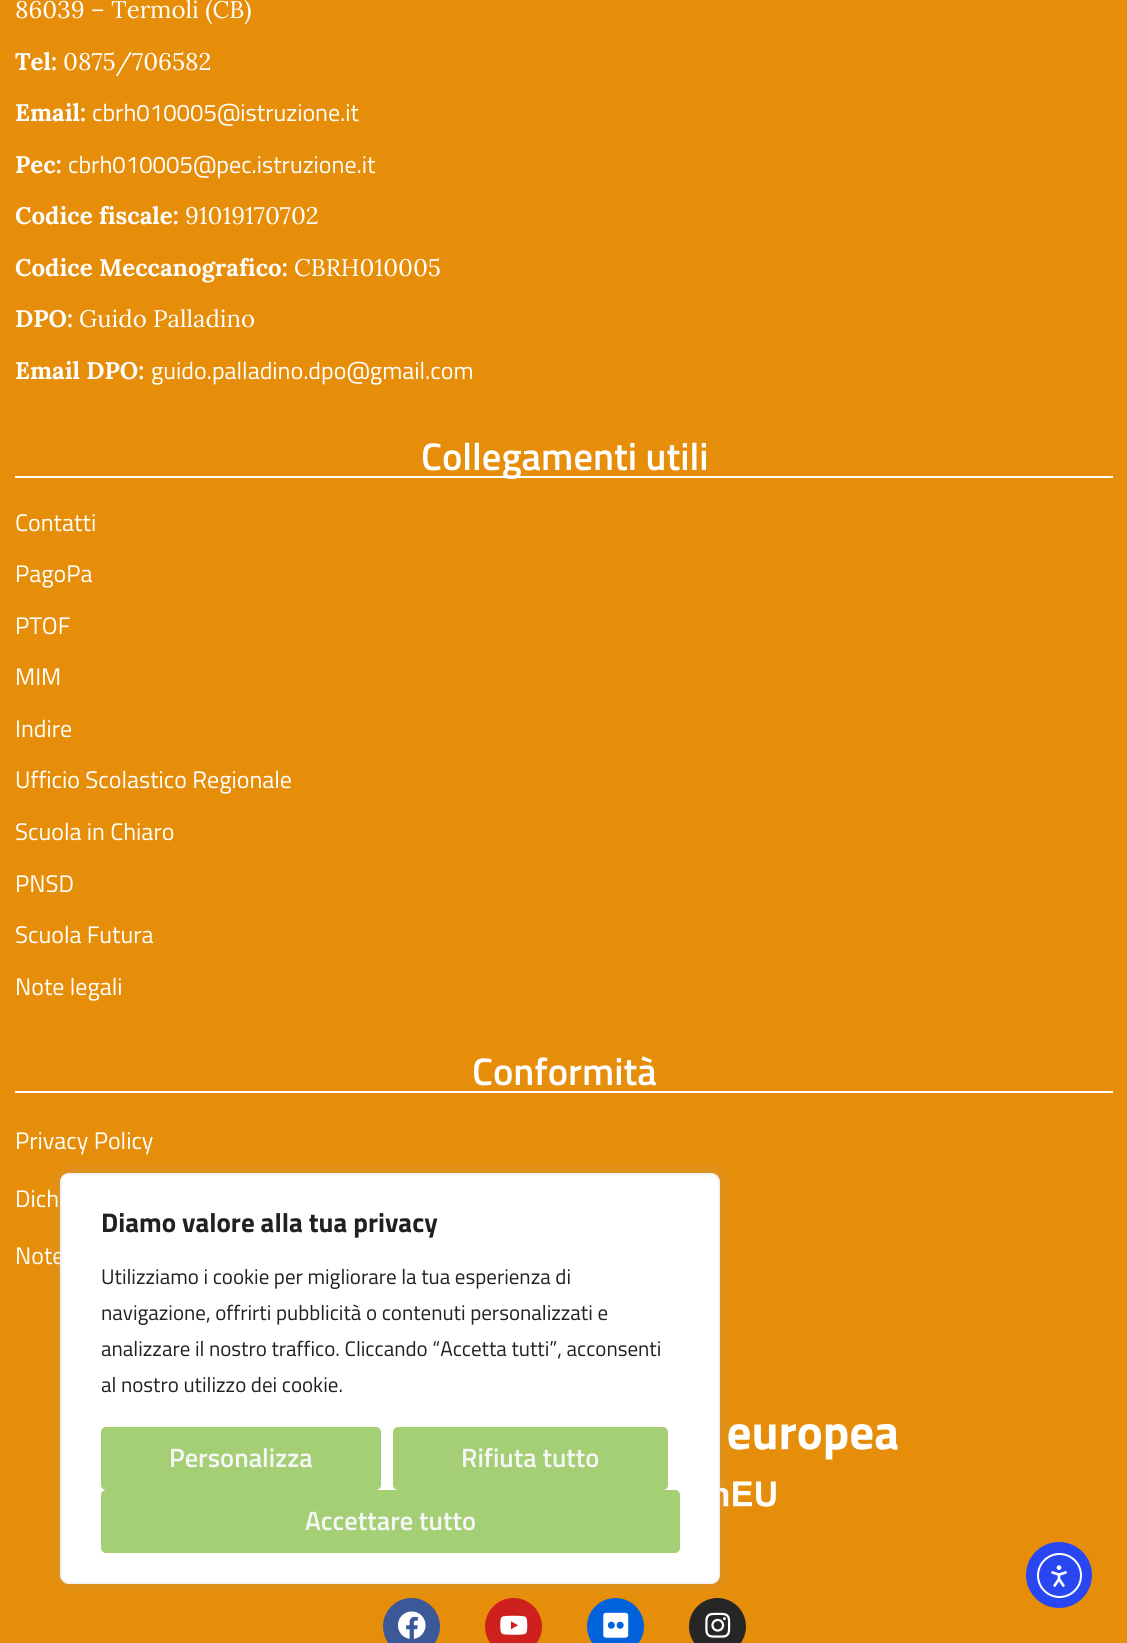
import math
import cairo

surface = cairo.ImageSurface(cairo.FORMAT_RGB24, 1127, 1643)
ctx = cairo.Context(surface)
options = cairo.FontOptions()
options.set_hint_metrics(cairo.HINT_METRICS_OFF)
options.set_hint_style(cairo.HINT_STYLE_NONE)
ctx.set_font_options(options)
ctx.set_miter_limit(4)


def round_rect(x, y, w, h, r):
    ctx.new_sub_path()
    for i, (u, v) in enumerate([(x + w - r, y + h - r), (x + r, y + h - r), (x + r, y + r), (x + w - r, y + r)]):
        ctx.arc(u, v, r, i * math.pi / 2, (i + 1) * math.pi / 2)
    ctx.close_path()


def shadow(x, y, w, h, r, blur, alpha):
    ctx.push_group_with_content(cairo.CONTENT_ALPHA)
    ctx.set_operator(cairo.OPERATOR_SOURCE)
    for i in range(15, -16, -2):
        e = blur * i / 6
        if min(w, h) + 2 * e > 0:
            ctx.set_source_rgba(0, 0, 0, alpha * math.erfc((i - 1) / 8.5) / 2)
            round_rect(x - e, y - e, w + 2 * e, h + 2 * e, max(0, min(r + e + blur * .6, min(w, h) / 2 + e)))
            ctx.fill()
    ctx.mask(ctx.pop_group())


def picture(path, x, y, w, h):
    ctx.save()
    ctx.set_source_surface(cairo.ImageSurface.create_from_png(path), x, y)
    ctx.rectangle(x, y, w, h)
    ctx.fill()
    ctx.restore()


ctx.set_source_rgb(0.902, 0.557, 0.039)
ctx.paint()
ctx.select_font_face("Lora")
ctx.set_font_size(24)
ctx.set_source_rgb(1, 1, 1)
ctx.move_to(15, 18)
ctx.show_text("86039 – Termoli (CB)")
ctx.select_font_face("Lora", cairo.FONT_SLANT_NORMAL, cairo.FONT_WEIGHT_BOLD)
ctx.move_to(15, 70)
ctx.show_text("Tel:")
ctx.select_font_face("Lora")
ctx.move_to(63, 70)
ctx.show_text("0875/706582")
ctx.select_font_face("Lora", cairo.FONT_SLANT_NORMAL, cairo.FONT_WEIGHT_BOLD)
ctx.move_to(15, 121)
ctx.show_text("Email:")
ctx.select_font_face("Titillium Web")
ctx.move_to(92, 121)
ctx.show_text("cbrh010005@istruzione.it")
ctx.select_font_face("Lora", cairo.FONT_SLANT_NORMAL, cairo.FONT_WEIGHT_BOLD)
ctx.move_to(15, 173)
ctx.show_text("Pec:")
ctx.select_font_face("Titillium Web")
ctx.move_to(68, 173)
ctx.show_text("cbrh010005@pec.istruzione.it")
ctx.select_font_face("Lora", cairo.FONT_SLANT_NORMAL, cairo.FONT_WEIGHT_BOLD)
ctx.move_to(15, 224)
ctx.show_text("Codice fiscale:")
ctx.select_font_face("Lora")
ctx.move_to(185, 224)
ctx.show_text("91019170702")
ctx.select_font_face("Lora", cairo.FONT_SLANT_NORMAL, cairo.FONT_WEIGHT_BOLD)
ctx.move_to(15, 276)
ctx.show_text("Codice Meccanografico:")
ctx.select_font_face("Lora")
ctx.move_to(294, 276)
ctx.show_text("CBRH010005")
ctx.select_font_face("Lora", cairo.FONT_SLANT_NORMAL, cairo.FONT_WEIGHT_BOLD)
ctx.move_to(15, 327)
ctx.show_text("DPO:")
ctx.select_font_face("Lora")
ctx.move_to(79, 327)
ctx.show_text("Guido Palladino")
ctx.select_font_face("Lora", cairo.FONT_SLANT_NORMAL, cairo.FONT_WEIGHT_BOLD)
ctx.move_to(15, 379)
ctx.show_text("Email DPO:")
ctx.select_font_face("Titillium Web")
ctx.move_to(151, 379)
ctx.show_text("guido.palladino.dpo@gmail.com")
ctx.rectangle(15, 476, 1098, 2)
ctx.fill()
ctx.select_font_face("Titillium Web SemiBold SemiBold")
ctx.set_font_size(38.5)
ctx.move_to(421, 470)
ctx.show_text("Collegamenti utili")
ctx.select_font_face("Titillium Web")
ctx.set_font_size(24)
ctx.move_to(15, 531)
ctx.show_text("Contatti")
ctx.move_to(15, 582)
ctx.show_text("PagoPa")
ctx.move_to(15, 634)
ctx.show_text("PTOF")
ctx.move_to(15, 685)
ctx.show_text("MIM")
ctx.move_to(15, 737)
ctx.show_text("Indire")
ctx.move_to(15, 788)
ctx.show_text("Ufficio Scolastico Regionale")
ctx.move_to(15, 840)
ctx.show_text("Scuola in Chiaro")
ctx.move_to(15, 892)
ctx.show_text("PNSD")
ctx.move_to(15, 943)
ctx.show_text("Scuola Futura")
ctx.move_to(15, 995)
ctx.show_text("Note legali")
ctx.rectangle(15, 1091, 1098, 2)
ctx.fill()
ctx.select_font_face("Titillium Web SemiBold SemiBold")
ctx.set_font_size(38.5)
ctx.move_to(472, 1085)
ctx.show_text("Conformità")
ctx.select_font_face("Titillium Web")
ctx.set_font_size(24)
ctx.move_to(15, 1149)
ctx.show_text("Privacy Policy")
ctx.move_to(15, 1207)
ctx.show_text("Dich")
ctx.move_to(15, 1264)
ctx.show_text("Note")
picture("img1.png", 720, 1424, 178, 83)
ctx.set_source_rgb(0.231, 0.349, 0.596)
ctx.arc(411.5, 1626.5, 28.5, 0, 2 * math.pi)
ctx.fill()
picture("img2.png", 398, 1611, 28, 28)
ctx.set_source_rgb(0.804, 0.125, 0.122)
ctx.arc(513.5, 1626.5, 28.5, 0, 2 * math.pi)
ctx.fill()
picture("img3.png", 500, 1615, 28, 20)
ctx.set_source_rgb(0, 0.388, 0.863)
ctx.arc(615.5, 1626.5, 28.5, 0, 2 * math.pi)
ctx.fill()
picture("img4.png", 603, 1612, 26, 26)
ctx.set_source_rgb(0.149, 0.149, 0.149)
ctx.arc(717.5, 1626.5, 28.5, 0, 2 * math.pi)
ctx.fill()
picture("img5.png", 705, 1612, 26, 26)
ctx.set_source_rgb(0.675, 0.671, 0.671)
shadow(60, 1172, 660, 411, 9, 7.5, 0.3)
ctx.set_source_rgb(1, 1, 1)
round_rect(61, 1174, 658, 409, 8)
ctx.fill_preserve()
ctx.set_source_rgb(0.957, 0.957, 0.957)
ctx.stroke()
ctx.select_font_face("Titillium Web", cairo.FONT_SLANT_NORMAL, cairo.FONT_WEIGHT_BOLD)
ctx.set_font_size(27)
ctx.set_source_rgb(0.129, 0.129, 0.129)
ctx.move_to(101, 1232)
ctx.show_text("Diamo valore alla tua privacy")
ctx.select_font_face("Titillium Web")
ctx.set_font_size(21)
ctx.move_to(101, 1284)
ctx.show_text("Utilizziamo i cookie per migliorare la tua esperienza di")
ctx.move_to(101, 1320)
ctx.show_text("navigazione, offrirti pubblicità o contenuti personalizzati e")
ctx.move_to(101, 1356)
ctx.show_text("analizzare il nostro traffico. Cliccando “Accetta tutti”, acconsenti")
ctx.move_to(101, 1392)
ctx.show_text("al nostro utilizzo dei cookie.")
ctx.set_source_rgb(0.647, 0.812, 0.459)
round_rect(101, 1427, 280, 63, 5)
ctx.fill()
ctx.select_font_face("Titillium Web SemiBold SemiBold")
ctx.set_font_size(26.5)
ctx.set_source_rgb(0.961, 0.961, 0.961)
ctx.move_to(169, 1467)
ctx.show_text("Personalizza")
ctx.set_source_rgb(0.647, 0.812, 0.459)
round_rect(393, 1427, 275, 63, 5)
ctx.fill()
ctx.set_source_rgb(0.961, 0.961, 0.961)
ctx.move_to(461, 1467)
ctx.show_text("Rifiuta tutto")
ctx.set_source_rgb(0.647, 0.812, 0.459)
round_rect(101, 1490, 579, 63, 5)
ctx.fill()
ctx.set_source_rgb(0.961, 0.961, 0.961)
ctx.move_to(305, 1530)
ctx.show_text("Accettare tutto")
ctx.set_source_rgb(0.157, 0.278, 0.953)
ctx.new_path()
ctx.arc(1059, 1575, 33, 0, 2 * math.pi)
ctx.fill()
ctx.arc(1059.5, 1575.5, 21.5, 0, 2 * math.pi)
ctx.set_source_rgb(1, 1, 1)
ctx.stroke()
picture("img6.png", 1051, 1565, 16, 22)
surface.write_to_png("page.png")
